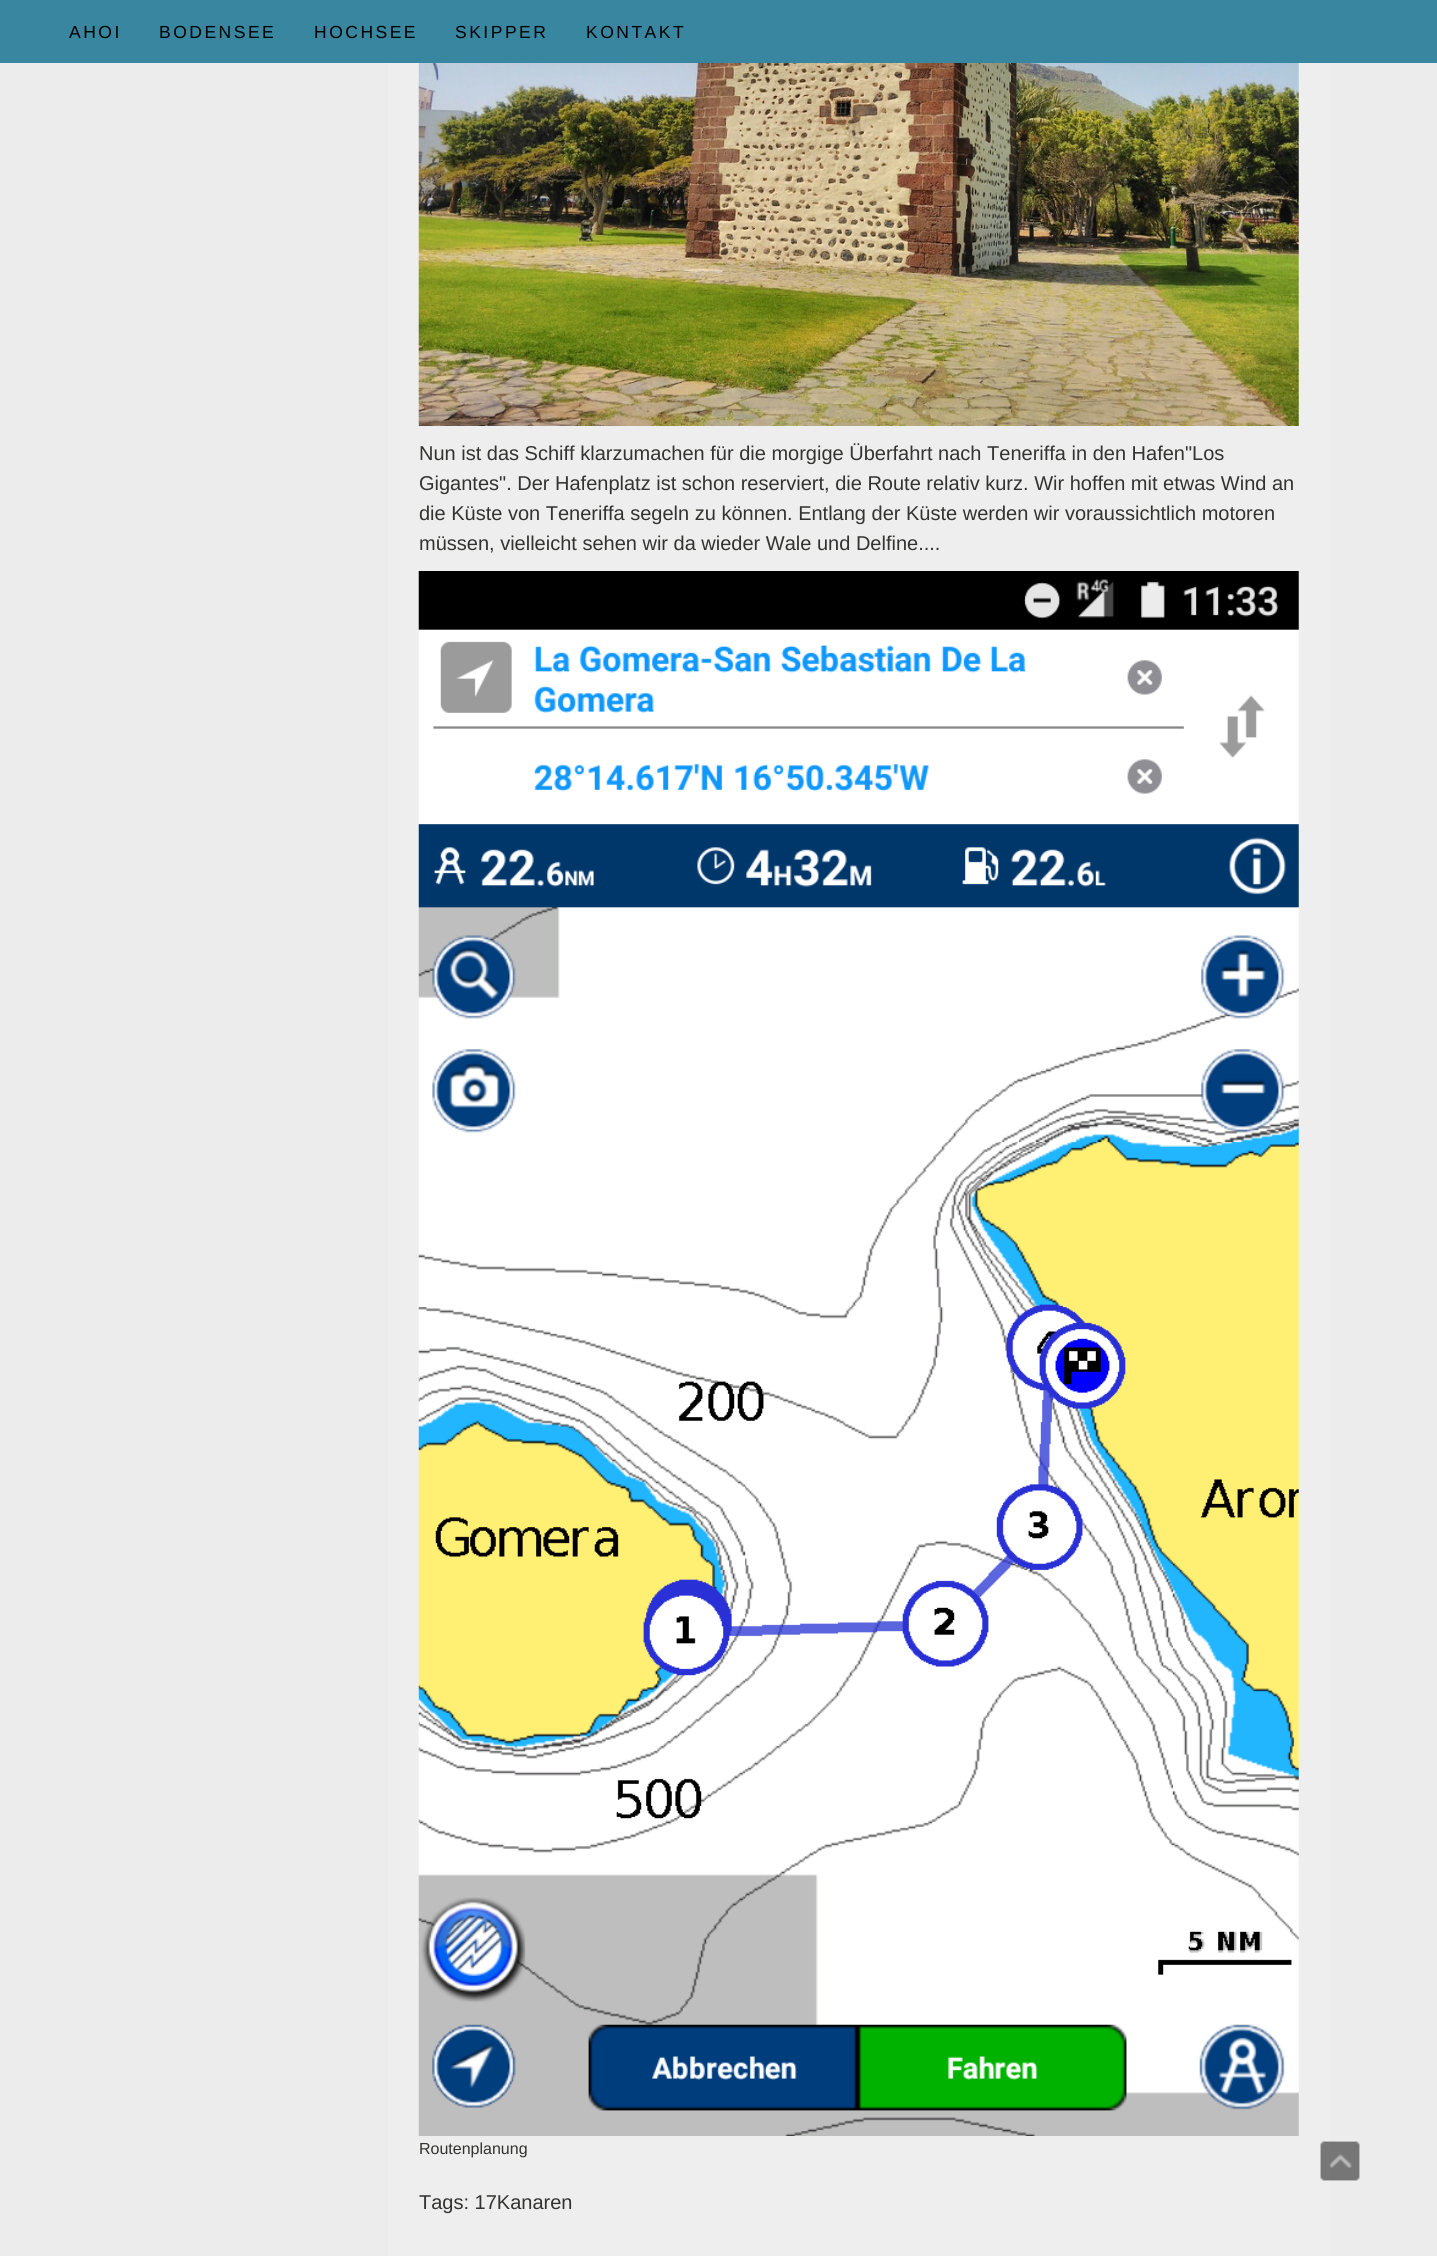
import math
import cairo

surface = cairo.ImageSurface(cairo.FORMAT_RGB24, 1437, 2256)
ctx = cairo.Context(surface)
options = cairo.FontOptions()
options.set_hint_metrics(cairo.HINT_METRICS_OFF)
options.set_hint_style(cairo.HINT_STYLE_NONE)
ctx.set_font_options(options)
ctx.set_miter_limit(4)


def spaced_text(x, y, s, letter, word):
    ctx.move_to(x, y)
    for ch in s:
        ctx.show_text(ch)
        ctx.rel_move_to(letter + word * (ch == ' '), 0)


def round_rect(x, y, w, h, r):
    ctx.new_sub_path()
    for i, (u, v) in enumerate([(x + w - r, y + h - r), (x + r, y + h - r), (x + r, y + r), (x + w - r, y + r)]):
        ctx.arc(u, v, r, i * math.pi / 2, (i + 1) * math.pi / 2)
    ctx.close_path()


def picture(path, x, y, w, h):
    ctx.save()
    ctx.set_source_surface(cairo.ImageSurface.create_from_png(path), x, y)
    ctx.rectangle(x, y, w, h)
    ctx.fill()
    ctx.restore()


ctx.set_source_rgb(0.922, 0.922, 0.922)
ctx.paint()
ctx.set_source_rgb(0.224, 0.525, 0.627)
ctx.rectangle(0, 0, 1437, 63)
ctx.fill()
ctx.select_font_face("Arimo")
ctx.set_font_size(17.5)
ctx.set_source_rgb(0, 0, 0)
spaced_text(69, 38, "AHOI", 2.5, 0)
spaced_text(159, 38, "BODENSEE", 2.5, 0)
spaced_text(314, 38, "HOCHSEE", 2.5, 0)
spaced_text(455, 38, "SKIPPER", 2.5, 0)
spaced_text(586, 38, "KONTAKT", 2.5, 0)
ctx.set_source_rgb(0.933, 0.933, 0.933)
ctx.rectangle(388, 63, 942, 2193)
ctx.fill()
picture("img1.png", 418, 63, 881, 363)
ctx.set_font_size(20)
ctx.set_source_rgb(0.2, 0.2, 0.196)
ctx.move_to(419, 460)
ctx.show_text("Nun ist das Schiff klarzumachen für die morgige Überfahrt nach Teneriffa in den Hafen\"Los")
ctx.move_to(419, 490)
ctx.show_text("Gigantes\". Der Hafenplatz ist schon reserviert, die Route relativ kurz. Wir hoffen mit etwas Wind an")
ctx.move_to(419, 520)
ctx.show_text("die Küste von Teneriffa segeln zu können. Entlang der Küste werden wir voraussichtlich motoren")
ctx.move_to(419, 550)
ctx.show_text("müssen, vielleicht sehen wir da wieder Wale und Delfine....")
picture("img2.png", 418, 571, 881, 1565)
ctx.set_font_size(16)
ctx.move_to(419, 2154)
ctx.show_text("Routenplanung")
ctx.set_font_size(20)
ctx.move_to(419, 2209)
ctx.show_text("Tags: 17Kanaren")
ctx.set_source_rgba(0, 0, 0, 0.5)
round_rect(1320, 2141, 40, 40, 5)
ctx.fill()
round_rect(1320.5, 2141.5, 39, 39, 4.5)
ctx.set_source_rgba(1, 1, 1, 0.5)
ctx.set_line_width(1)
ctx.stroke()
picture("img3.png", 1329, 2154, 23, 14)
surface.write_to_png("page.png")
